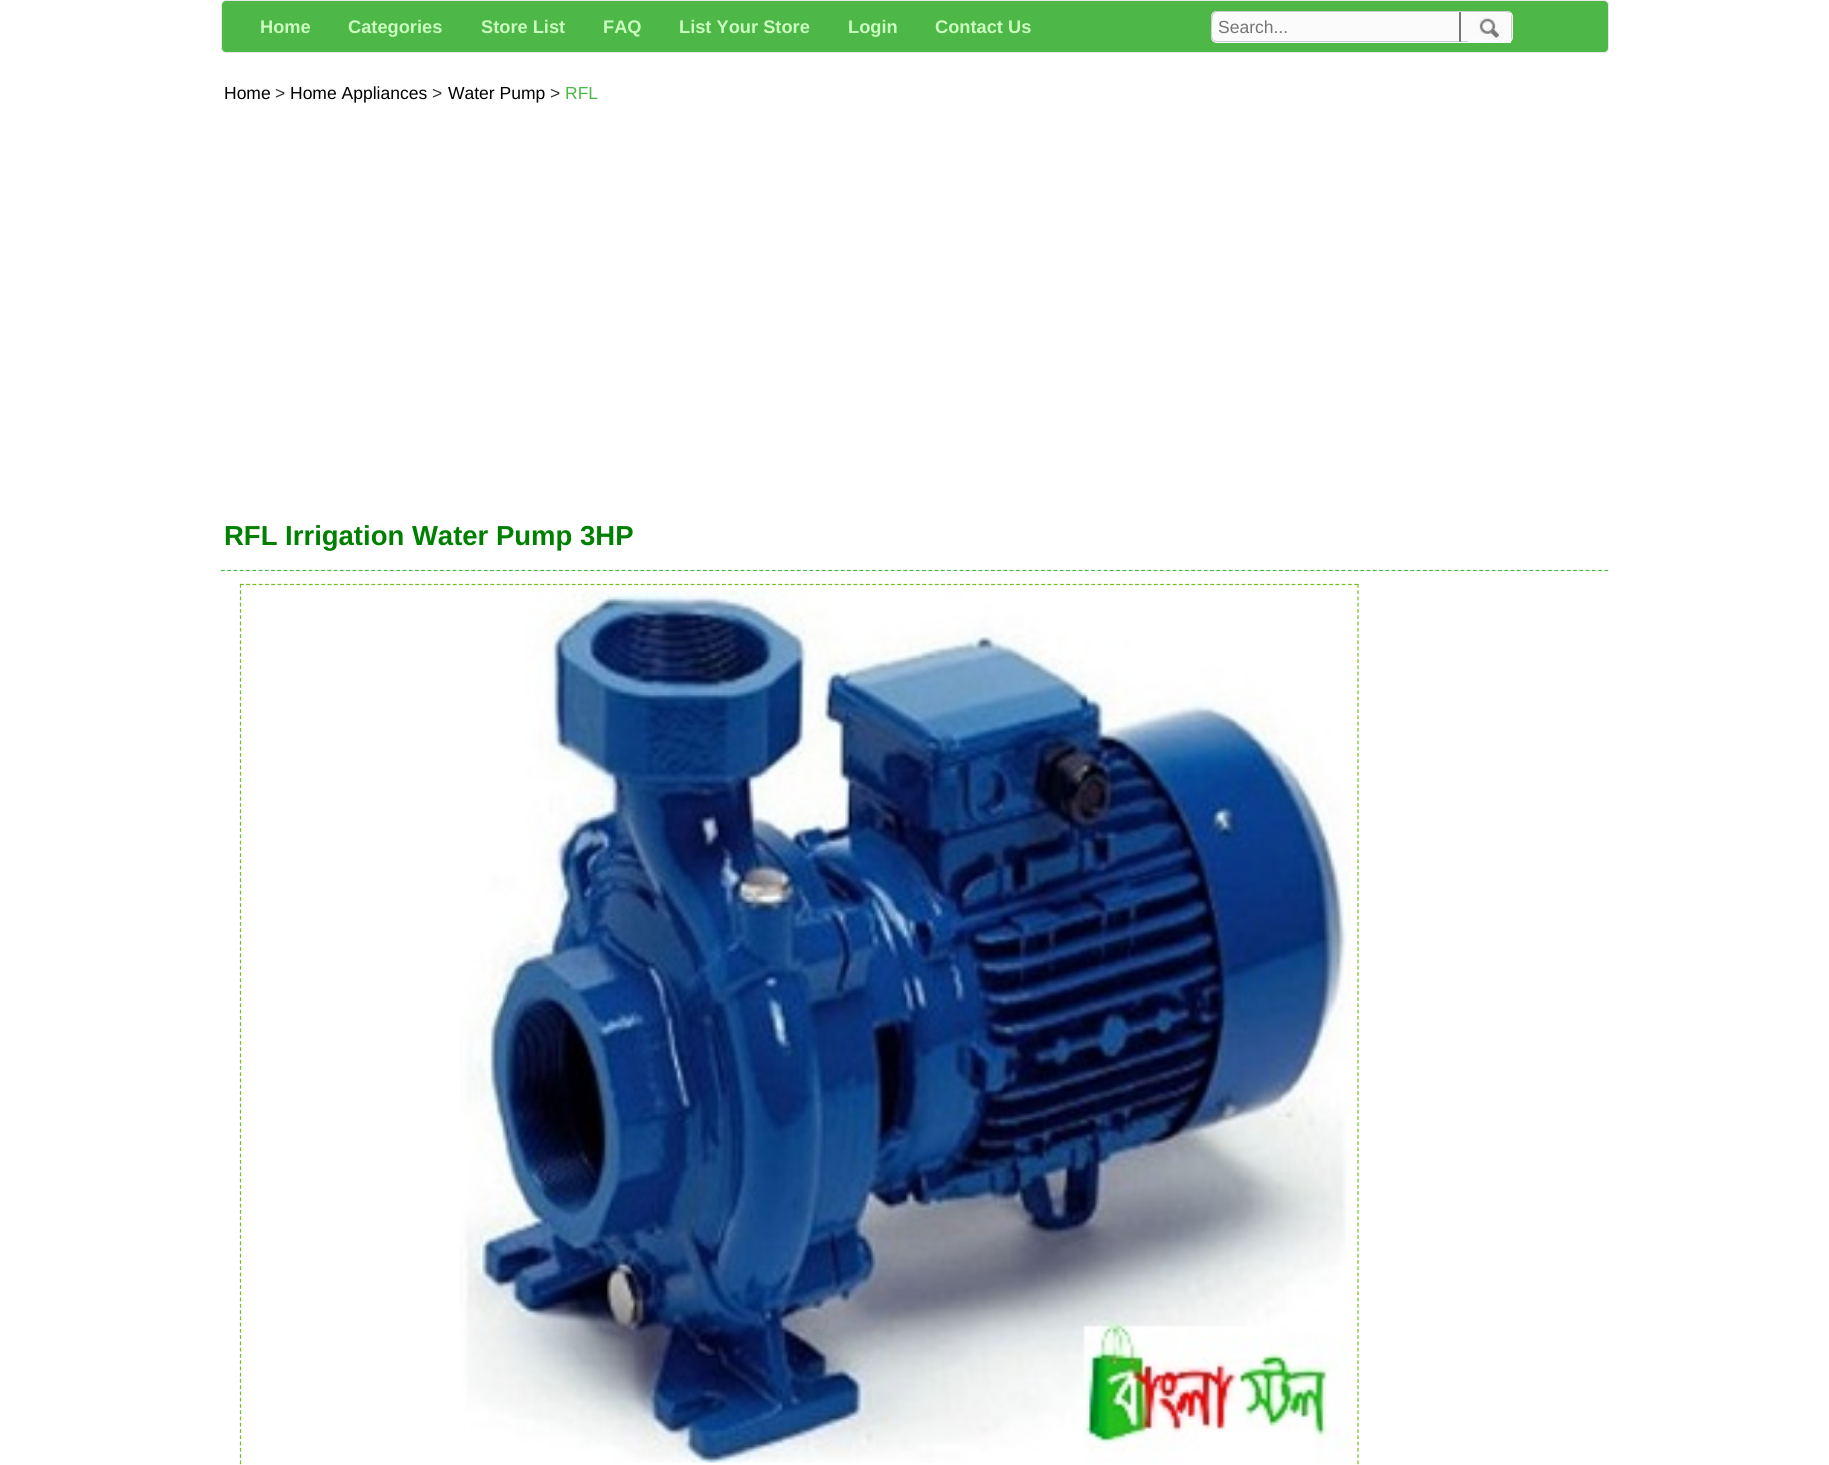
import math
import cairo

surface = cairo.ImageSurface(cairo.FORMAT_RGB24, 1829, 1465)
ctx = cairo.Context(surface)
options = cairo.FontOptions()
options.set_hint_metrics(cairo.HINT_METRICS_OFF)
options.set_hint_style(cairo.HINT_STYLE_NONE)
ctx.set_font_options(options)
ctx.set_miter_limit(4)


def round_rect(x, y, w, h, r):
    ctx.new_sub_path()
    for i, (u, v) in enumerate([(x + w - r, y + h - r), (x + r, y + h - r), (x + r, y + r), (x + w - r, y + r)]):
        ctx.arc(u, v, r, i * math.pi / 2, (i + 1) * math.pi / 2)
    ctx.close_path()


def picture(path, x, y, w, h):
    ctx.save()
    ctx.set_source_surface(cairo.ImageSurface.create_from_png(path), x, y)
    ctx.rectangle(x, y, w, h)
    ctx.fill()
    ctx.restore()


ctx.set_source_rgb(1, 1, 1)
ctx.paint()
ctx.set_source_rgb(0.302, 0.722, 0.282)
round_rect(221.5, 0.5, 1387, 52, 4.5)
ctx.fill_preserve()
ctx.set_source_rgb(0.906, 0.906, 0.906)
ctx.set_line_width(1)
ctx.stroke()
ctx.select_font_face("Liberation Sans", cairo.FONT_SLANT_NORMAL, cairo.FONT_WEIGHT_BOLD)
ctx.set_font_size(18.25)
ctx.set_source_rgb(0.792, 0.988, 0.749)
ctx.move_to(260, 33)
ctx.show_text("Home")
ctx.move_to(348, 33)
ctx.show_text("Categories")
ctx.move_to(481, 33)
ctx.show_text("Store List")
ctx.move_to(603, 33)
ctx.show_text("FAQ")
ctx.move_to(679, 33)
ctx.show_text("List Your Store")
ctx.move_to(848, 33)
ctx.show_text("Login")
ctx.move_to(935, 33)
ctx.show_text("Contact Us")
ctx.set_source_rgb(0.984, 0.984, 0.984)
ctx.new_path()
ctx.move_to(1217, 11)
ctx.line_to(1461, 11)
ctx.line_to(1461, 43)
ctx.line_to(1217, 43)
ctx.curve_to(1213.5, 43, 1211, 40.5, 1211, 37)
ctx.line_to(1211, 17)
ctx.curve_to(1211, 13.5, 1213.5, 11, 1217, 11)
ctx.close_path()
ctx.fill()
ctx.set_source_rgb(0.8, 0.8, 0.8)
ctx.new_path()
ctx.move_to(1218, 12)
ctx.curve_to(1216, 12, 1215, 13, 1214, 14)
ctx.line_to(1213, 13)
ctx.line_to(1216, 11)
ctx.line_to(1461, 11)
ctx.line_to(1459, 12)
ctx.close_path()
ctx.fill()
ctx.set_source_rgb(0.463, 0.463, 0.463)
ctx.new_path()
ctx.move_to(1461, 11.5)
ctx.line_to(1461, 42)
ctx.line_to(1460, 42)
ctx.line_to(1458, 41)
ctx.line_to(1459, 41)
ctx.line_to(1459, 12.5)
ctx.close_path()
ctx.fill()
ctx.set_source_rgb(0.8, 0.8, 0.8)
ctx.new_path()
ctx.move_to(1460, 42)
ctx.line_to(1218, 42)
ctx.curve_to(1216, 42, 1214, 42, 1213, 41)
ctx.line_to(1214, 40)
ctx.line_to(1216, 41)
ctx.line_to(1458, 41)
ctx.close_path()
ctx.fill()
ctx.new_path()
ctx.move_to(1211, 16)
ctx.curve_to(1211.5, 15, 1212, 14, 1213, 13)
ctx.line_to(1214, 14)
ctx.curve_to(1213, 15, 1212.5, 16.5, 1212.5, 18)
ctx.curve_to(1212, 20, 1211.5, 35, 1212, 36.5)
ctx.curve_to(1212.5, 38, 1213, 39, 1213.5, 40)
ctx.line_to(1213, 40.5)
ctx.curve_to(1212, 40, 1211.5, 39, 1211, 38)
ctx.close_path()
ctx.fill()
ctx.select_font_face("Liberation Sans")
ctx.set_font_size(17.5)
ctx.set_source_rgb(0.459, 0.459, 0.459)
ctx.move_to(1218, 33)
ctx.show_text("Search...")
ctx.set_source_rgb(0.984, 0.984, 0.984)
ctx.new_path()
ctx.move_to(1461, 11)
ctx.line_to(1507, 11)
ctx.curve_to(1510.5, 11, 1513, 13.5, 1513, 17)
ctx.line_to(1513, 37)
ctx.curve_to(1513, 40.5, 1510.5, 43, 1507, 43)
ctx.line_to(1461, 43)
ctx.close_path()
ctx.fill()
ctx.set_source_rgb(0.8, 0.8, 0.8)
ctx.set_fill_rule(cairo.FILL_RULE_EVEN_ODD)
ctx.new_path()
ctx.move_to(1461, 11)
ctx.line_to(1506, 11)
ctx.curve_to(1510, 11, 1512, 14, 1512, 18)
ctx.line_to(1512, 36)
ctx.curve_to(1512, 40, 1510, 42, 1506, 42)
ctx.line_to(1461, 42)
ctx.close_path()
ctx.move_to(1461, 12)
ctx.line_to(1506, 12)
ctx.curve_to(1509, 12, 1511, 15, 1511, 18)
ctx.line_to(1511, 36)
ctx.curve_to(1511, 39, 1509, 41, 1506, 41)
ctx.line_to(1461, 41)
ctx.close_path()
ctx.fill()
ctx.set_source_rgb(0.984, 0.984, 0.984)
ctx.rectangle(1468, 13, 43, 30)
ctx.fill()
picture("img1.png", 1475, 15, 29, 26)
ctx.new_path()
ctx.move_to(221, 570.5)
ctx.line_to(1609, 570.5)
ctx.set_source_rgb(0.302, 0.722, 0.282)
ctx.set_line_width(1.2)
ctx.set_dash([3.75, 2.51])
ctx.stroke()
ctx.set_source_rgb(0, 0, 0)
ctx.move_to(224, 99)
ctx.show_text("Home")
ctx.set_source_rgb(0.2, 0.2, 0.2)
ctx.move_to(275, 99)
ctx.show_text(">")
ctx.set_source_rgb(0, 0, 0)
ctx.move_to(290, 99)
ctx.show_text("Home Appliances")
ctx.set_source_rgb(0.2, 0.2, 0.2)
ctx.move_to(432, 99)
ctx.show_text(">")
ctx.set_source_rgb(0, 0, 0)
ctx.move_to(448, 99)
ctx.show_text("Water Pump")
ctx.set_source_rgb(0.2, 0.2, 0.2)
ctx.move_to(550, 99)
ctx.show_text(">")
ctx.set_source_rgb(0.302, 0.722, 0.282)
ctx.move_to(565, 99)
ctx.show_text("RFL")
ctx.select_font_face("Liberation Sans", cairo.FONT_SLANT_NORMAL, cairo.FONT_WEIGHT_BOLD)
ctx.set_font_size(27.5)
ctx.set_source_rgb(0, 0.502, 0)
ctx.move_to(224, 545)
ctx.show_text("RFL Irrigation Water Pump 3HP")
ctx.new_path()
ctx.move_to(240, 584.5)
ctx.line_to(1359, 584.5)
ctx.set_source_rgb(0.451, 0.745, 0.118)
ctx.stroke()
ctx.new_path()
ctx.move_to(240.5, 584)
ctx.line_to(240.5, 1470)
ctx.stroke()
picture("img2.png", 460, 591, 891, 872)
ctx.new_path()
ctx.move_to(1358, 584)
ctx.line_to(1358, 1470)
ctx.stroke()
surface.write_to_png("page.png")
